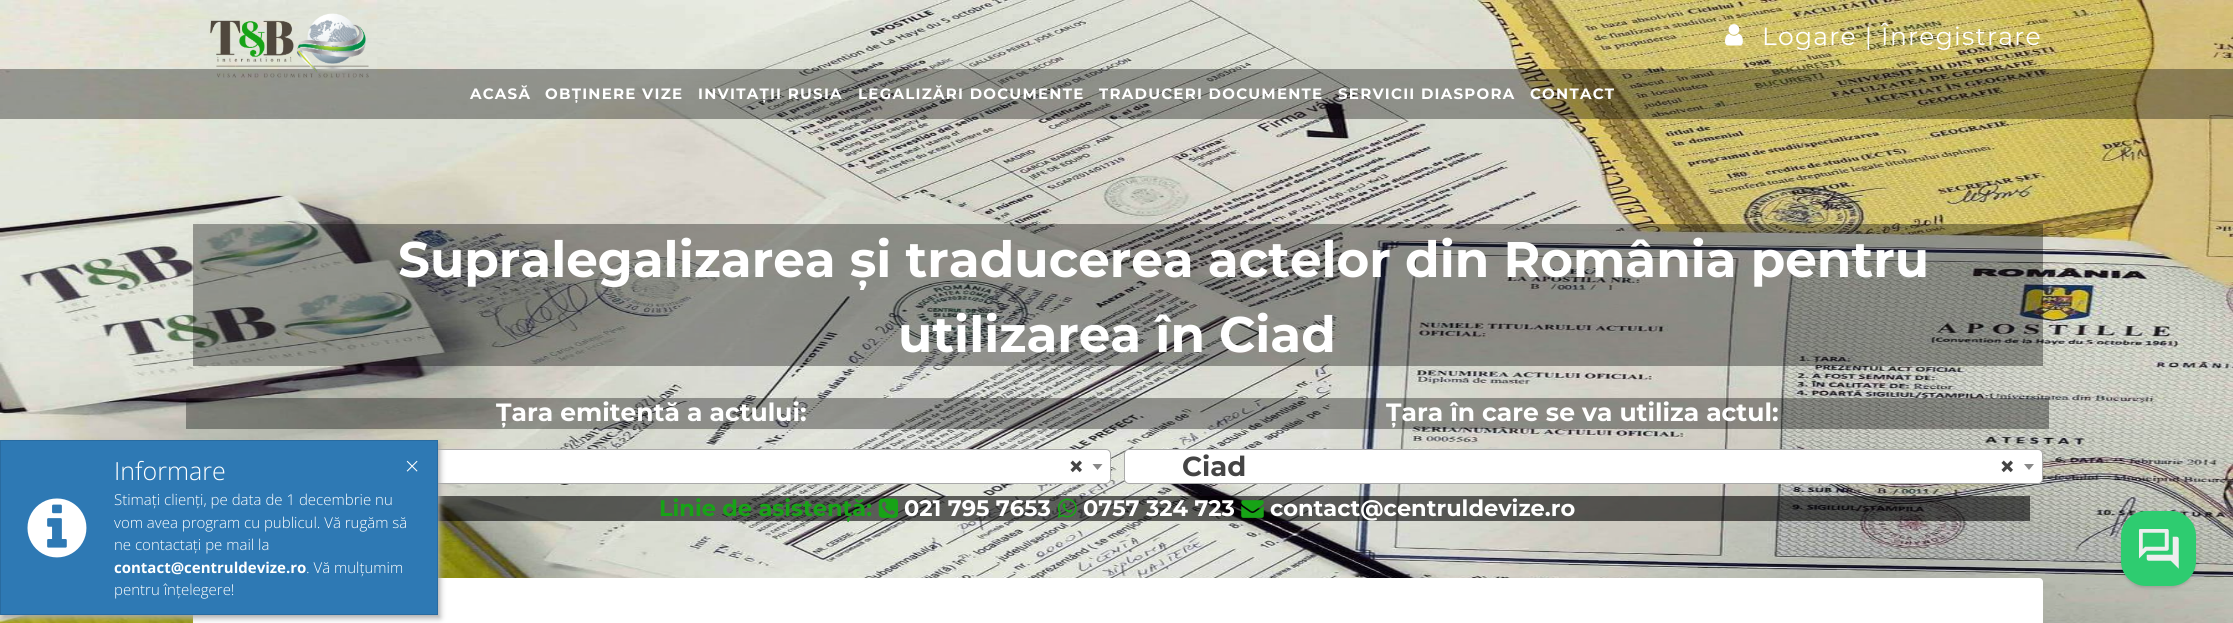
import math
import cairo

surface = cairo.ImageSurface(cairo.FORMAT_RGB24, 2233, 623)
ctx = cairo.Context(surface)
options = cairo.FontOptions()
options.set_hint_metrics(cairo.HINT_METRICS_OFF)
options.set_hint_style(cairo.HINT_STYLE_NONE)
ctx.set_font_options(options)
ctx.set_miter_limit(4)


def spaced_text(x, y, s, letter, word):
    ctx.move_to(x, y)
    for ch in s:
        ctx.show_text(ch)
        ctx.rel_move_to(letter + word * (ch == ' '), 0)


def round_rect(x, y, w, h, r):
    ctx.new_sub_path()
    for i, (u, v) in enumerate([(x + w - r, y + h - r), (x + r, y + h - r), (x + r, y + r), (x + w - r, y + r)]):
        ctx.arc(u, v, r, i * math.pi / 2, (i + 1) * math.pi / 2)
    ctx.close_path()


def shadow(x, y, w, h, r, blur, alpha):
    ctx.push_group_with_content(cairo.CONTENT_ALPHA)
    ctx.set_operator(cairo.OPERATOR_SOURCE)
    for i in range(15, -16, -2):
        e = blur * i / 6
        if min(w, h) + 2 * e > 0:
            ctx.set_source_rgba(0, 0, 0, alpha * math.erfc((i - 1) / 8.5) / 2)
            round_rect(x - e, y - e, w + 2 * e, h + 2 * e, max(0, min(r + e + blur * .6, min(w, h) / 2 + e)))
            ctx.fill()
    ctx.mask(ctx.pop_group())


def picture(path, x, y, w, h):
    ctx.save()
    ctx.set_source_surface(cairo.ImageSurface.create_from_png(path), x, y)
    ctx.rectangle(x, y, w, h)
    ctx.fill()
    ctx.restore()


ctx.set_source_rgb(1, 1, 1)
ctx.paint()
picture("img4.png", 0, 0, 2233, 623)
ctx.set_source_rgba(0, 0, 0, 0.35)
ctx.rectangle(0, 69, 2233, 50)
ctx.fill()
picture("img1.png", 210, 13, 159, 65)
picture("img2.png", 1725, 24, 18, 22)
ctx.select_font_face("Montserrat")
ctx.set_font_size(25)
ctx.set_source_rgb(1, 1, 1)
spaced_text(1762, 45, "Logare | Înregistrare", 1.25, 0)
ctx.select_font_face("Montserrat", cairo.FONT_SLANT_NORMAL, cairo.FONT_WEIGHT_BOLD)
ctx.set_font_size(15)
spaced_text(470, 99, "ACASĂ", 1.25, 0)
spaced_text(545, 99, "OBȚINERE VIZE", 1.25, 0)
spaced_text(698, 99, "INVITAȚII RUSIA", 1.25, 0)
spaced_text(858, 99, "LEGALIZĂRI DOCUMENTE", 1.25, 0)
spaced_text(1099, 99, "TRADUCERI DOCUMENTE", 1.25, 0)
spaced_text(1338, 99, "SERVICII DIASPORA", 1.25, 0)
spaced_text(1530, 99, "CONTACT", 1.25, 0)
round_rect(193.5, 449.5, 917, 34, 4.5)
ctx.fill_preserve()
ctx.set_source_rgb(0.667, 0.667, 0.667)
ctx.set_line_width(1)
ctx.stroke()
ctx.set_source_rgba(0, 0, 0, 0.6)
ctx.rectangle(438, 496, 1592, 25)
ctx.fill()
ctx.set_source_rgb(1, 1, 1)
round_rect(193, 578, 1850, 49, 4)
ctx.fill()
ctx.set_source_rgb(0.667, 0.667, 0.667)
shadow(3, 443, 437, 175, 0, 3, 1)
ctx.set_source_rgb(0.18, 0.475, 0.706)
ctx.rectangle(0.5, 440.5, 437, 174)
ctx.fill_preserve()
ctx.set_source_rgb(0.161, 0.42, 0.627)
ctx.stroke()
ctx.select_font_face("Open Sans Light")
ctx.set_font_size(25)
ctx.set_source_rgb(1, 1, 1)
ctx.move_to(114, 480)
ctx.show_text("Informare")
ctx.set_font_size(15)
ctx.move_to(114, 505)
ctx.show_text("Stimați clienți, pe data de 1 decembrie nu")
ctx.move_to(114, 528)
ctx.show_text("vom avea program cu publicul. Vă rugăm să")
ctx.move_to(114, 550)
ctx.show_text("ne contactați pe mail la")
ctx.select_font_face("Open Sans", cairo.FONT_SLANT_NORMAL, cairo.FONT_WEIGHT_BOLD)
ctx.move_to(114, 573)
ctx.show_text("contact@centruldevize.ro")
ctx.select_font_face("Open Sans Light")
ctx.move_to(306, 573)
ctx.show_text(". Vă mulțumim")
ctx.move_to(114, 595)
ctx.show_text("pentru înțelegere!")
ctx.set_font_size(25)
ctx.move_to(405, 475)
ctx.show_text("×")
picture("img3.png", 27, 498, 60, 60)
ctx.set_source_rgba(0, 0, 0, 0.35)
ctx.rectangle(193, 224, 1850, 142)
ctx.fill()
ctx.select_font_face("Montserrat", cairo.FONT_SLANT_NORMAL, cairo.FONT_WEIGHT_BOLD)
ctx.set_font_size(50)
ctx.set_source_rgb(1, 1, 1)
ctx.move_to(398, 277)
ctx.show_text("Supralegalizarea și traducerea actelor din România pentru")
ctx.move_to(898, 352)
ctx.show_text("utilizarea în Ciad")
ctx.set_source_rgba(0, 0, 0, 0.35)
ctx.rectangle(186, 398, 932, 31)
ctx.fill()
ctx.set_font_size(25)
ctx.set_source_rgb(1, 1, 1)
ctx.move_to(496, 421)
ctx.show_text("Țara emitentă a actului:")
ctx.set_font_size(27.5)
ctx.set_source_rgb(0.267, 0.267, 0.267)
ctx.move_to(1068, 476)
ctx.show_text("×")
ctx.set_source_rgb(0.533, 0.533, 0.533)
ctx.new_path()
ctx.move_to(1092.5, 464)
ctx.line_to(1102.5, 464)
ctx.line_to(1097.5, 470)
ctx.close_path()
ctx.fill()
ctx.set_source_rgba(0, 0, 0, 0.35)
ctx.rectangle(1118, 398, 931, 31)
ctx.fill()
ctx.set_font_size(25)
ctx.set_source_rgb(1, 1, 1)
ctx.move_to(1386, 421)
ctx.show_text("Țara în care se va utiliza actul:")
round_rect(1124.5, 449.5, 918, 34, 4.5)
ctx.fill_preserve()
ctx.set_source_rgb(0.667, 0.667, 0.667)
ctx.stroke()
ctx.set_font_size(27.5)
ctx.set_source_rgb(0.267, 0.267, 0.267)
ctx.move_to(1182, 476)
ctx.show_text("Ciad")
ctx.move_to(1999, 476)
ctx.show_text("×")
ctx.set_source_rgb(0.533, 0.533, 0.533)
ctx.new_path()
ctx.move_to(2024, 464)
ctx.line_to(2034, 464)
ctx.line_to(2029, 470)
ctx.close_path()
ctx.fill()
ctx.set_font_size(22.5)
ctx.set_source_rgb(0.09, 0.639, 0.086)
ctx.move_to(659, 516)
ctx.show_text("Linie de asistență:")
picture("img5.png", 878, 498, 20, 20)
ctx.set_source_rgb(1, 1, 1)
ctx.move_to(904, 516)
ctx.show_text("021 795 7653")
picture("img6.png", 1057, 498, 20, 20)
ctx.move_to(1083, 516)
ctx.show_text("0757 324 723")
picture("img7.png", 1241, 500, 23, 18)
ctx.move_to(1270, 516)
ctx.show_text("contact@centruldevize.ro")
ctx.set_source_rgb(0, 0, 0)
shadow(2121, 513, 75, 75, 25, 1, 0.06)
shadow(2121, 513, 75, 75, 25, 2, 0.1)
ctx.set_source_rgb(0.18, 0.8, 0.439)
round_rect(2121, 511, 75, 75, 25)
ctx.fill()
picture("img8.png", 2139, 529, 40, 40)
surface.write_to_png("page.png")
